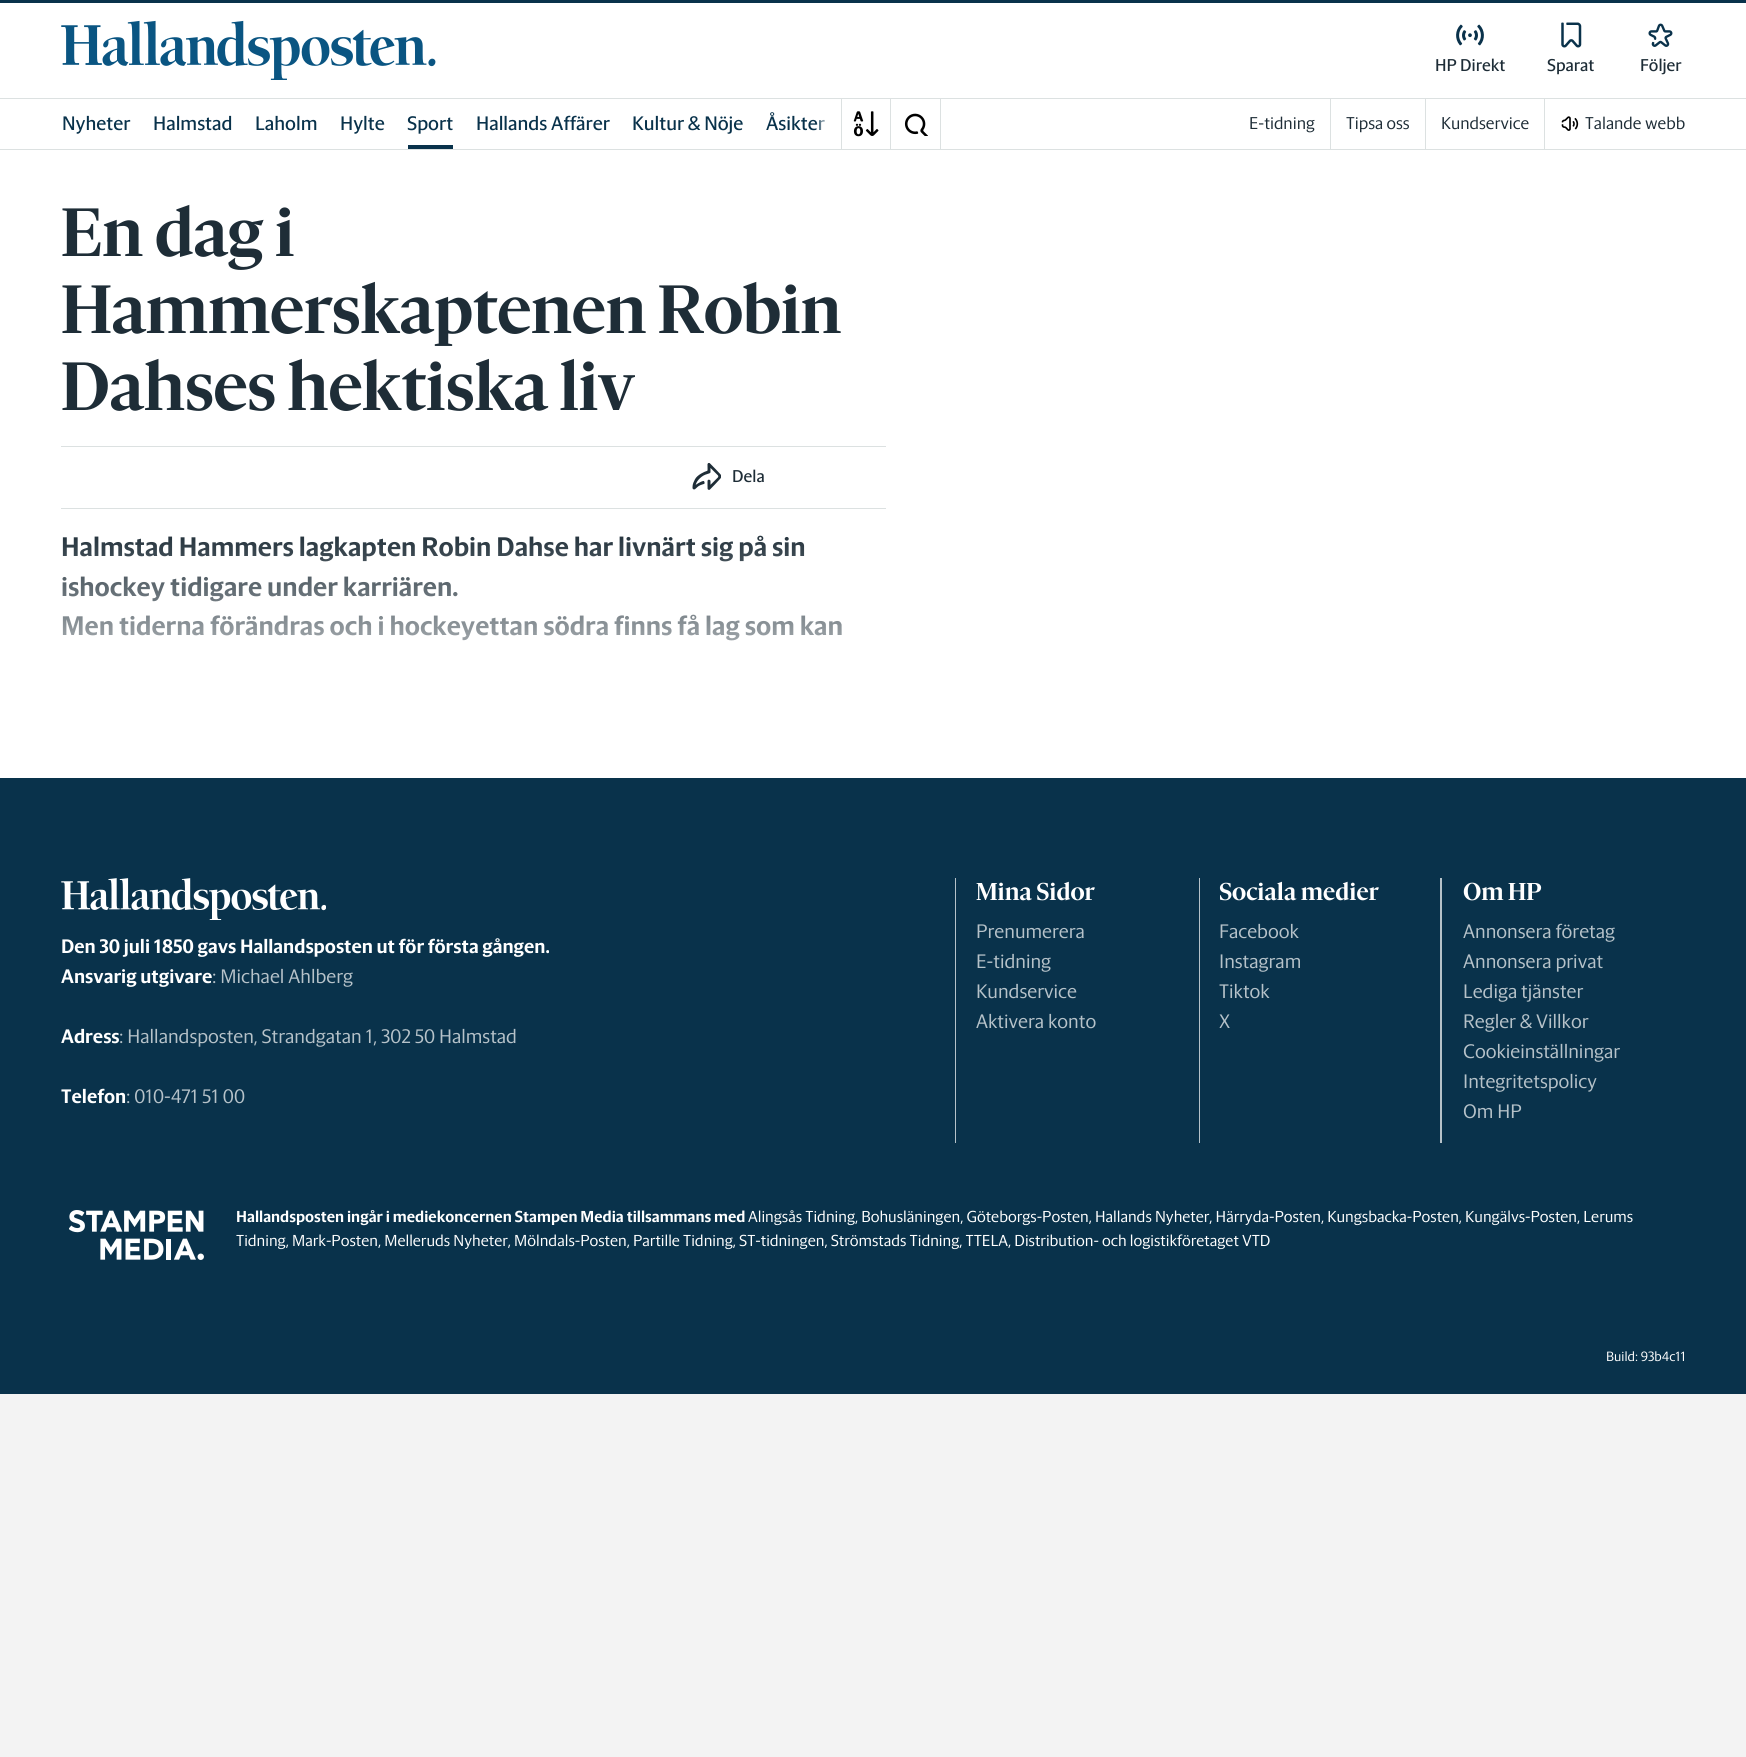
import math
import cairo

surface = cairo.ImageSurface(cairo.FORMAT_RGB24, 1746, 1757)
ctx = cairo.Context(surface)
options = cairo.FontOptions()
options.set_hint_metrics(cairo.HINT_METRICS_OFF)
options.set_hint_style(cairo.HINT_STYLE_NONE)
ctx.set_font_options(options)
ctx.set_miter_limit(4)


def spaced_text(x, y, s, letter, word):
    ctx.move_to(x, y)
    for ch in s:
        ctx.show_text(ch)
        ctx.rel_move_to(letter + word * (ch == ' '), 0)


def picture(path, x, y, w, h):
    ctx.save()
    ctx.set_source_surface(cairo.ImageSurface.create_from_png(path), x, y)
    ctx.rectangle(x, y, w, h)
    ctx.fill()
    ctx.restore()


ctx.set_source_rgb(0.953, 0.953, 0.953)
ctx.paint()
ctx.set_source_rgb(1, 1, 1)
ctx.rectangle(0, 3, 1746, 146)
ctx.fill()
ctx.set_source_rgb(0.039, 0.196, 0.294)
ctx.rectangle(0, 0, 1746, 3)
ctx.fill()
ctx.set_source_rgb(0.863, 0.882, 0.882)
ctx.rectangle(0, 149, 1746, 1)
ctx.fill()
picture("img1.png", 61, 20, 375, 60)
picture("img2.png", 1456, 24, 28, 22)
ctx.select_font_face("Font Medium")
ctx.set_font_size(17.5)
ctx.set_source_rgb(0.118, 0.176, 0.216)
ctx.move_to(1435, 71)
ctx.show_text("HP Direkt")
picture("img3.png", 1561, 22, 21, 26)
ctx.move_to(1547, 71)
ctx.show_text("Sparat")
picture("img4.png", 1648, 23, 25, 24)
ctx.move_to(1640, 71)
ctx.show_text("Följer")
ctx.set_source_rgb(0.863, 0.882, 0.882)
ctx.rectangle(0, 98, 1746, 1)
ctx.fill()
ctx.set_font_size(20)
ctx.set_source_rgb(0.039, 0.196, 0.294)
ctx.move_to(62, 130)
ctx.show_text("Nyheter")
ctx.move_to(153, 130)
ctx.show_text("Halmstad")
ctx.move_to(255, 130)
ctx.show_text("Laholm")
ctx.move_to(340, 130)
ctx.show_text("Hylte")
ctx.move_to(407, 130)
ctx.show_text("Sport")
ctx.rectangle(408, 145, 45, 4)
ctx.fill()
ctx.move_to(476, 130)
ctx.show_text("Hallands Affärer")
ctx.move_to(632, 130)
ctx.show_text("Kultur & Nöje")
ctx.move_to(766, 130)
ctx.show_text("Åsikter")
gradient = cairo.LinearGradient(816, 124, 841, 124)
gradient.add_color_stop_rgba(0, 1, 1, 1, 0)
gradient.add_color_stop_rgba(0.25, 1, 1, 1, 0.5)
gradient.add_color_stop_rgba(1, 1, 1, 1, 1)
ctx.set_source(gradient)
ctx.rectangle(816, 119, 9, 11)
ctx.fill()
ctx.set_source_rgb(0.863, 0.882, 0.882)
ctx.rectangle(890, 99, 1, 50)
ctx.fill()
ctx.rectangle(841, 99, 1, 50)
ctx.fill()
picture("img5.png", 853, 111, 26, 26)
ctx.rectangle(940, 99, 1, 50)
ctx.fill()
picture("img6.png", 904, 113, 24, 23)
ctx.rectangle(1330, 99, 1, 50)
ctx.fill()
ctx.select_font_face("Font Light")
ctx.set_font_size(17.5)
ctx.set_source_rgb(0.118, 0.176, 0.216)
ctx.move_to(1249, 129)
ctx.show_text("E-tidning")
ctx.set_source_rgb(0.863, 0.882, 0.882)
ctx.rectangle(1425, 99, 1, 50)
ctx.fill()
ctx.set_source_rgb(0.118, 0.176, 0.216)
ctx.move_to(1346, 129)
ctx.show_text("Tipsa oss")
ctx.set_source_rgb(0.863, 0.882, 0.882)
ctx.rectangle(1544, 99, 1, 50)
ctx.fill()
ctx.set_source_rgb(0.118, 0.176, 0.216)
ctx.move_to(1441, 129)
ctx.show_text("Kundservice")
picture("img7.png", 1561, 116, 18, 15)
ctx.move_to(1585, 129)
ctx.show_text("Talande webb")
ctx.set_source_rgb(1, 1, 1)
ctx.rectangle(0, 150, 1746, 628)
ctx.fill()
ctx.select_font_face("Font", cairo.FONT_SLANT_NORMAL, cairo.FONT_WEIGHT_BOLD)
ctx.set_font_size(70)
ctx.set_source_rgb(0.118, 0.176, 0.216)
spaced_text(61, 256, "En dag i", -0.5, 0)
spaced_text(61, 333, "Hammerskaptenen Robin", -0.5, 0)
spaced_text(61, 410, "Dahses hektiska liv", -0.5, 0)
ctx.set_source_rgb(0.863, 0.882, 0.882)
ctx.rectangle(61, 446, 825, 1)
ctx.fill()
ctx.rectangle(61, 508, 825, 1)
ctx.fill()
picture("img8.png", 692, 463, 29, 27)
ctx.select_font_face("Font Medium")
ctx.set_font_size(17.5)
ctx.set_source_rgb(0.118, 0.176, 0.216)
ctx.move_to(732, 482)
ctx.show_text("Dela")
ctx.select_font_face("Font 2", cairo.FONT_SLANT_NORMAL, cairo.FONT_WEIGHT_BOLD)
ctx.set_font_size(27.5)
ctx.move_to(61, 556)
ctx.show_text("Halmstad Hammers lagkapten Robin Dahse har livnärt sig på sin")
ctx.move_to(61, 596)
ctx.show_text("ishockey tidigare under karriären.")
ctx.move_to(61, 635)
ctx.show_text("Men tiderna förändras och i hockeyettan södra finns få lag som kan")
gradient = cairo.LinearGradient(474, 529, 474, 728)
gradient.add_color_stop_rgba(0, 1, 1, 1, 0)
gradient.add_color_stop_rgba(1, 1, 1, 1, 1)
ctx.set_source(gradient)
ctx.rectangle(62, 536, 779, 105)
ctx.fill()
ctx.set_source_rgb(0.039, 0.196, 0.294)
ctx.rectangle(0, 778, 1746, 616)
ctx.fill()
picture("img9.png", 61, 878, 265, 42)
ctx.set_font_size(20)
ctx.set_source_rgb(1, 1, 1)
ctx.move_to(61, 953)
ctx.show_text("Den 30 juli 1850 gavs Hallandsposten ut för första gången.")
ctx.move_to(61, 983)
ctx.show_text("Ansvarig utgivare")
ctx.select_font_face("Font Light")
ctx.set_source_rgb(0.714, 0.761, 0.788)
ctx.move_to(212, 983)
ctx.show_text(": Michael Ahlberg")
ctx.select_font_face("Font 2", cairo.FONT_SLANT_NORMAL, cairo.FONT_WEIGHT_BOLD)
ctx.set_source_rgb(1, 1, 1)
ctx.move_to(61, 1043)
ctx.show_text("Adress")
ctx.select_font_face("Font Light")
ctx.set_source_rgb(0.714, 0.761, 0.788)
ctx.move_to(119, 1043)
ctx.show_text(": Hallandsposten, Strandgatan 1, 302 50 Halmstad")
ctx.select_font_face("Font 2", cairo.FONT_SLANT_NORMAL, cairo.FONT_WEIGHT_BOLD)
ctx.set_source_rgb(1, 1, 1)
ctx.move_to(61, 1103)
ctx.show_text("Telefon")
ctx.select_font_face("Font Light")
ctx.set_source_rgb(0.714, 0.761, 0.788)
ctx.move_to(126, 1103)
ctx.show_text(": 010-471 51 00")
ctx.rectangle(955, 878, 1, 265)
ctx.fill()
ctx.select_font_face("Font", cairo.FONT_SLANT_NORMAL, cairo.FONT_WEIGHT_BOLD)
ctx.set_font_size(25)
ctx.set_source_rgb(1, 1, 1)
ctx.move_to(976, 900)
ctx.show_text("Mina Sidor")
ctx.select_font_face("Font Light")
ctx.set_font_size(20)
ctx.set_source_rgb(0.714, 0.761, 0.788)
ctx.move_to(976, 938)
ctx.show_text("Prenumerera")
ctx.move_to(976, 968)
ctx.show_text("E-tidning")
ctx.move_to(976, 998)
ctx.show_text("Kundservice")
ctx.move_to(976, 1028)
ctx.show_text("Aktivera konto")
ctx.rectangle(1440, 878, 2, 265)
ctx.fill()
ctx.rectangle(1199, 878, 1, 265)
ctx.fill()
ctx.select_font_face("Font", cairo.FONT_SLANT_NORMAL, cairo.FONT_WEIGHT_BOLD)
ctx.set_font_size(25)
ctx.set_source_rgb(1, 1, 1)
ctx.move_to(1219, 900)
ctx.show_text("Sociala medier")
ctx.select_font_face("Font Light")
ctx.set_font_size(20)
ctx.set_source_rgb(0.714, 0.761, 0.788)
ctx.move_to(1219, 938)
ctx.show_text("Facebook")
ctx.move_to(1219, 968)
ctx.show_text("Instagram")
ctx.move_to(1219, 998)
ctx.show_text("Tiktok")
ctx.move_to(1219, 1028)
ctx.show_text("X")
ctx.select_font_face("Font", cairo.FONT_SLANT_NORMAL, cairo.FONT_WEIGHT_BOLD)
ctx.set_font_size(25)
ctx.set_source_rgb(1, 1, 1)
ctx.move_to(1463, 900)
ctx.show_text("Om HP")
ctx.select_font_face("Font Light")
ctx.set_font_size(20)
ctx.set_source_rgb(0.714, 0.761, 0.788)
ctx.move_to(1463, 938)
ctx.show_text("Annonsera företag")
ctx.move_to(1463, 968)
ctx.show_text("Annonsera privat")
ctx.move_to(1463, 998)
ctx.show_text("Lediga tjänster")
ctx.move_to(1463, 1028)
ctx.show_text("Regler & Villkor")
ctx.move_to(1463, 1058)
ctx.show_text("Cookieinställningar")
ctx.move_to(1463, 1088)
ctx.show_text("Integritetspolicy")
ctx.move_to(1463, 1118)
ctx.show_text("Om HP")
picture("img10.png", 69, 1210, 135, 50)
ctx.select_font_face("Font 2", cairo.FONT_SLANT_NORMAL, cairo.FONT_WEIGHT_BOLD)
ctx.set_font_size(16.25)
ctx.set_source_rgb(1, 1, 1)
ctx.move_to(236, 1222)
ctx.show_text("Hallandsposten ingår i mediekoncernen Stampen Media tillsammans med")
ctx.select_font_face("Font Light")
ctx.move_to(748, 1222)
ctx.show_text("Alingsås Tidning, Bohusläningen, Göteborgs-Posten, Hallands Nyheter, Härryda-Posten, Kungsbacka-Posten, Kungälvs-Posten, Lerums")
ctx.move_to(236, 1246)
ctx.show_text("Tidning, Mark-Posten, Melleruds Nyheter, Mölndals-Posten, Partille Tidning, ST-tidningen, Strömstads Tidning, TTELA, Distribution- och logistikföretaget VTD")
ctx.set_font_size(13.75)
ctx.move_to(1606, 1361)
ctx.show_text("Build: 93b4c11")
surface.write_to_png("page.png")
